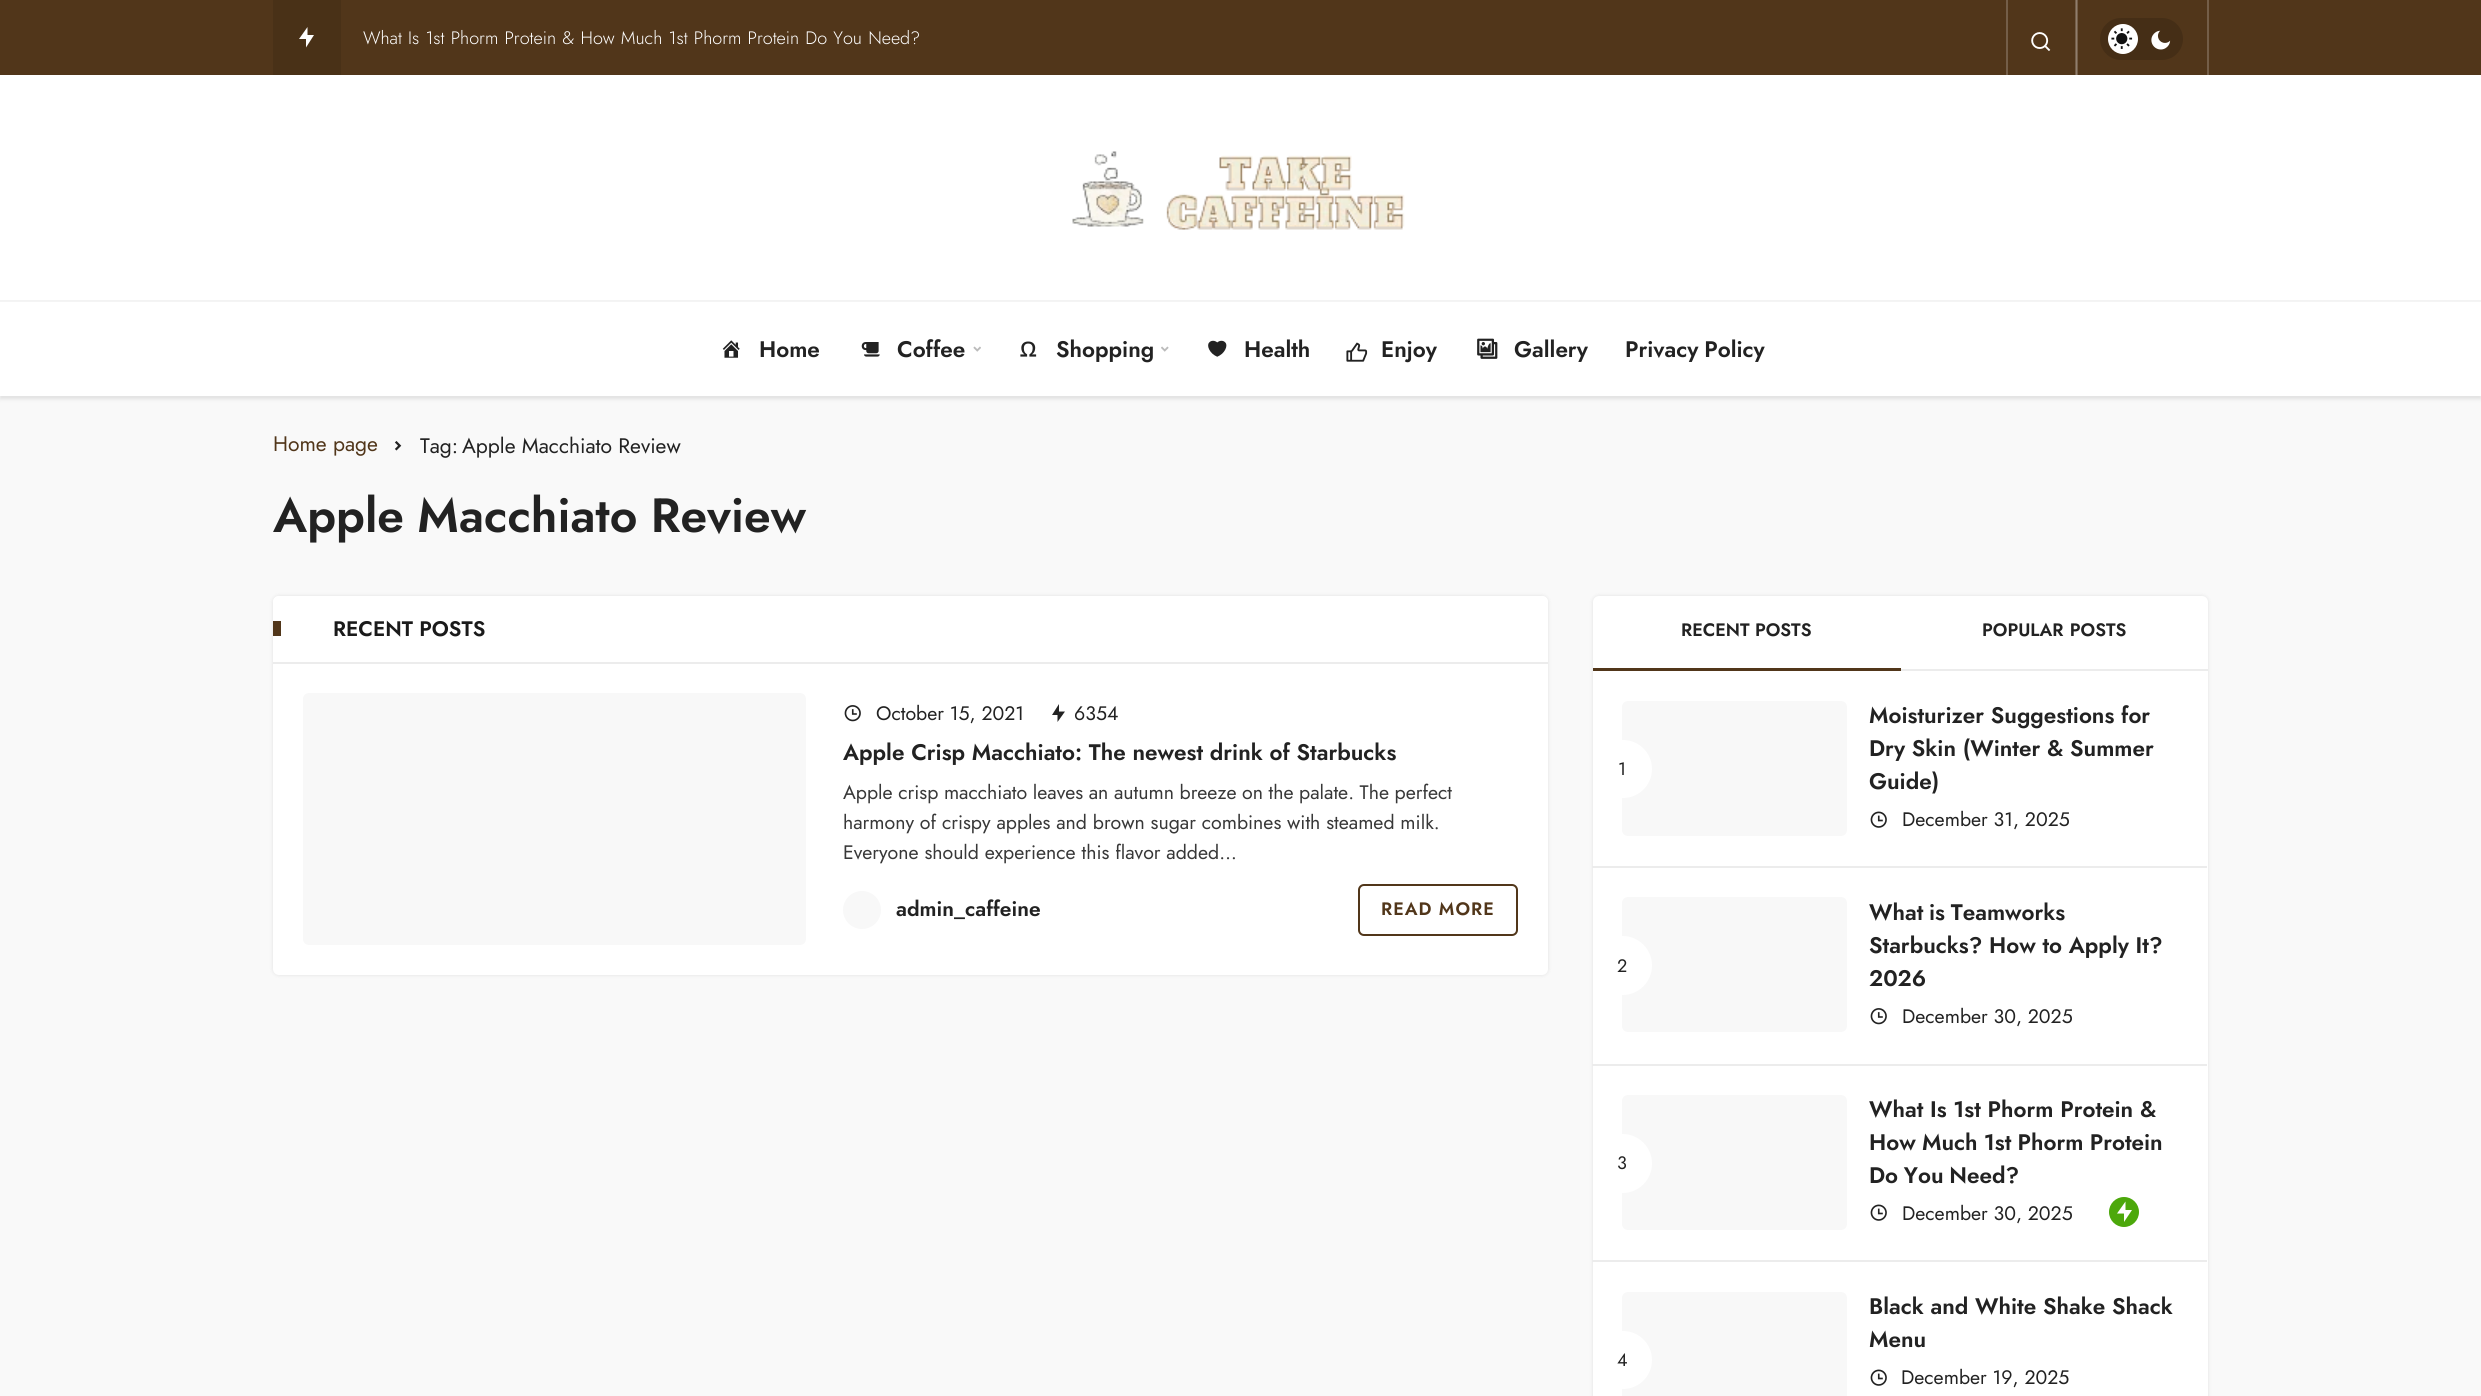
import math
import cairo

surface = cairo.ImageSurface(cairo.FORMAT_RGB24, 2481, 1396)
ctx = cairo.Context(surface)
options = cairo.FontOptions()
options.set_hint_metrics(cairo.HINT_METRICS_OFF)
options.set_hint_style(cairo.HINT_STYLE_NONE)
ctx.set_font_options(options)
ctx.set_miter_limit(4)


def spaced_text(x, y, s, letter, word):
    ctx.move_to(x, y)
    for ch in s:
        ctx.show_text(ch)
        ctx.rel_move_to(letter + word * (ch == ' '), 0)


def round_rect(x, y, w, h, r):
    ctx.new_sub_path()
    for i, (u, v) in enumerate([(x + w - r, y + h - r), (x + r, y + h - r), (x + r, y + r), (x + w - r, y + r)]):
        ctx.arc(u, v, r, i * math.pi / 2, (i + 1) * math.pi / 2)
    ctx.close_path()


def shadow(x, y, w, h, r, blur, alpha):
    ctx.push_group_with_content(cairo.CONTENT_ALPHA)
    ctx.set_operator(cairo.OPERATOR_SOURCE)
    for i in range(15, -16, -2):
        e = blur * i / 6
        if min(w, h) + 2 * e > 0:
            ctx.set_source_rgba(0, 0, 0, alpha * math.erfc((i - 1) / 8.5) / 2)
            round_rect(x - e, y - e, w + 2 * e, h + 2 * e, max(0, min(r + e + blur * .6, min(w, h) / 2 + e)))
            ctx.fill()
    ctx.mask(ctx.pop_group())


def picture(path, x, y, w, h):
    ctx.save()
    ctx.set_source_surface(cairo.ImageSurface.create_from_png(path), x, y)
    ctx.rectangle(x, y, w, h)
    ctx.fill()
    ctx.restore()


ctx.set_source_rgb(0.973, 0.973, 0.973)
ctx.paint()
ctx.set_source_rgb(0.318, 0.212, 0.102)
ctx.rectangle(0, 0, 2481, 75)
ctx.fill()
ctx.set_source_rgb(0.455, 0.369, 0.282)
ctx.rectangle(2077, 0, 1, 75)
ctx.fill()
ctx.set_source_rgb(0.286, 0.192, 0.09)
ctx.rectangle(273, 0, 68, 75)
ctx.fill()
ctx.set_source_rgb(1, 1, 1)
ctx.new_path()
ctx.move_to(307.5, 35)
ctx.line_to(314, 35)
ctx.line_to(306, 47.5)
ctx.line_to(306, 39)
ctx.line_to(299, 39)
ctx.line_to(307.5, 27)
ctx.close_path()
ctx.fill()
ctx.select_font_face("Jost Light")
ctx.set_font_size(18)
spaced_text(363, 44, "What Is 1st Phorm Protein & How Much 1st Phorm Protein Do You Need?", 0, 0.8)
ctx.set_source_rgb(0.455, 0.369, 0.282)
ctx.rectangle(2207, 0, 2, 75)
ctx.fill()
ctx.rectangle(2006, 0, 2, 75)
ctx.fill()
ctx.rectangle(2075, 0, 1, 75)
ctx.fill()
ctx.set_source_rgb(0.565, 0.494, 0.427)
ctx.rectangle(2076, 0, 1, 75)
ctx.fill()
picture("img1.png", 2031, 32, 20, 19)
ctx.set_source_rgb(0.271, 0.18, 0.086)
round_rect(2100, 18, 83, 42, 21)
ctx.fill()
ctx.set_source_rgb(1, 1, 1)
ctx.arc(2123, 39, 15, 0, 2 * math.pi)
ctx.fill()
picture("img2.png", 2111, 28, 22, 21)
picture("img3.png", 2151, 30, 20, 20)
ctx.set_source_rgb(0, 0, 0)
shadow(0, 303, 2481, 96, 0, 2, 0.1)
ctx.set_source_rgb(1, 1, 1)
ctx.rectangle(0, 75, 2481, 225)
ctx.fill()
picture("img4.png", 1072, 151, 333, 79)
ctx.rectangle(0, 302, 2481, 94)
ctx.fill()
ctx.set_source_rgb(0.953, 0.953, 0.953)
ctx.rectangle(0, 300, 2481, 1)
ctx.fill()
picture("img5.png", 722, 340, 18, 18)
ctx.select_font_face("Jost SemiBold")
ctx.set_font_size(22.5)
ctx.set_source_rgb(0.133, 0.133, 0.133)
ctx.move_to(759, 357)
ctx.show_text("Home")
picture("img6.png", 861, 342, 19, 15)
ctx.move_to(897, 357)
ctx.show_text("Coffee")
picture("img7.png", 973, 346, 8, 6)
picture("img8.png", 1020, 341, 17, 16)
ctx.move_to(1056, 357)
ctx.show_text("Shopping")
picture("img9.png", 1161, 346, 8, 6)
picture("img10.png", 1208, 340, 19, 17)
ctx.move_to(1244, 357)
ctx.show_text("Health")
picture("img11.png", 1346, 342, 22, 20)
ctx.move_to(1381, 357)
ctx.show_text("Enjoy")
picture("img12.png", 1477, 338, 21, 21)
ctx.move_to(1514, 357)
ctx.show_text("Gallery")
spaced_text(1625, 357, "Privacy Policy", 0, -1)
ctx.select_font_face("Jost")
ctx.set_font_size(21)
ctx.set_source_rgb(0.318, 0.212, 0.102)
ctx.move_to(273, 451)
ctx.show_text("Home page")
picture("img13.png", 394, 441, 8, 10)
ctx.set_source_rgb(0.133, 0.133, 0.133)
ctx.move_to(420, 453)
ctx.show_text("Tag:")
ctx.move_to(462, 453)
ctx.show_text("Apple Macchiato Review")
ctx.select_font_face("Jost SemiBold")
ctx.set_font_size(48)
spaced_text(273, 532, "Apple Macchiato Review", 0, -1)
ctx.set_source_rgb(0, 0, 0)
shadow(273, 596, 1275, 379, 6, 2, 0.1)
ctx.set_source_rgb(1, 1, 1)
round_rect(273, 596, 1275, 379, 6)
ctx.fill()
ctx.new_path()
ctx.move_to(279, 596)
ctx.line_to(1542, 596)
ctx.curve_to(1545.5, 596, 1548, 598.5, 1548, 602)
ctx.line_to(1548, 663)
ctx.line_to(273, 663)
ctx.line_to(273, 602)
ctx.curve_to(273, 598.5, 275.5, 596, 279, 596)
ctx.close_path()
ctx.fill()
ctx.set_source_rgb(0.922, 0.922, 0.922)
ctx.rectangle(273, 662, 1275, 2)
ctx.fill()
ctx.set_source_rgb(0.318, 0.212, 0.102)
ctx.rectangle(273, 621, 8, 15)
ctx.fill()
ctx.set_font_size(21)
ctx.set_source_rgb(0.102, 0.102, 0.102)
ctx.move_to(333, 636)
ctx.show_text("RECENT POSTS")
ctx.set_source_rgb(0.969, 0.969, 0.969)
round_rect(303, 693, 503, 252, 6)
ctx.fill()
picture("img14.png", 844, 705, 17, 17)
ctx.select_font_face("Jost")
ctx.set_font_size(19.5)
ctx.set_source_rgb(0.133, 0.133, 0.133)
ctx.move_to(876, 720)
ctx.show_text("October 15, 2021")
ctx.new_path()
ctx.move_to(1059, 711.5)
ctx.line_to(1065, 711.5)
ctx.line_to(1057.5, 722)
ctx.line_to(1057.5, 715)
ctx.line_to(1052, 715)
ctx.line_to(1059, 704)
ctx.close_path()
ctx.fill()
ctx.move_to(1074, 720)
ctx.show_text("6354")
ctx.select_font_face("Jost SemiBold")
ctx.set_font_size(22.5)
ctx.move_to(843, 760)
ctx.show_text("Apple Crisp Macchiato: The newest drink of Starbucks")
ctx.select_font_face("Jost")
ctx.set_font_size(19.5)
ctx.set_source_rgb(0.22, 0.22, 0.22)
spaced_text(843, 799, "Apple crisp macchiato leaves an autumn breeze on the palate. The perfect", 0, -0.25)
ctx.move_to(843, 829)
ctx.show_text("harmony of crispy apples and brown sugar combines with steamed milk.")
ctx.move_to(843, 859)
ctx.show_text("Everyone should experience this flavor added…")
ctx.set_source_rgb(0.969, 0.969, 0.969)
ctx.new_path()
ctx.arc(862, 910, 19, 0, 2 * math.pi)
ctx.fill()
ctx.select_font_face("Jost SemiBold")
ctx.set_font_size(21)
ctx.set_source_rgb(0.133, 0.133, 0.133)
ctx.move_to(896, 916)
ctx.show_text("admin_caffeine")
round_rect(1359, 885, 158, 50, 5)
ctx.set_source_rgb(0.318, 0.212, 0.102)
ctx.stroke()
ctx.set_font_size(18)
spaced_text(1381, 915, "READ MORE", 1, 0)
ctx.set_source_rgb(0, 0, 0)
shadow(1593, 596, 615, 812, 6, 2, 0.1)
ctx.set_source_rgb(1, 1, 1)
round_rect(1593, 596, 615, 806, 6)
ctx.fill()
ctx.set_source_rgb(0.922, 0.922, 0.922)
ctx.rectangle(1901, 669, 307, 2)
ctx.fill()
ctx.set_source_rgb(0.318, 0.212, 0.102)
ctx.rectangle(1593, 668, 308, 3)
ctx.fill()
ctx.set_source_rgb(0.133, 0.133, 0.133)
ctx.move_to(1681, 636)
ctx.show_text("RECENT POSTS")
spaced_text(1982, 636, "POPULAR POSTS", 0, 1)
ctx.set_source_rgb(0.922, 0.922, 0.922)
ctx.rectangle(1592, 866, 615, 2)
ctx.fill()
ctx.set_source_rgb(0.969, 0.969, 0.969)
round_rect(1622, 701, 225, 135, 6)
ctx.fill()
ctx.set_source_rgb(1, 1, 1)
round_rect(1593, 740, 59, 58, 29)
ctx.fill()
ctx.select_font_face("Jost")
ctx.set_source_rgb(0.133, 0.133, 0.133)
ctx.move_to(1618, 775)
ctx.show_text("1")
ctx.select_font_face("Jost SemiBold")
ctx.set_font_size(22.5)
ctx.move_to(1869, 723)
ctx.show_text("Moisturizer Suggestions for")
ctx.move_to(1869, 756)
ctx.show_text("Dry Skin (Winter & Summer")
ctx.move_to(1869, 789)
ctx.show_text("Guide)")
picture("img15.png", 1870, 811, 17, 17)
ctx.select_font_face("Jost")
ctx.set_font_size(19.5)
ctx.move_to(1902, 826)
ctx.show_text("December 31, 2025")
ctx.set_source_rgb(0.922, 0.922, 0.922)
ctx.rectangle(1592, 1064, 615, 2)
ctx.fill()
ctx.set_source_rgb(0.969, 0.969, 0.969)
round_rect(1622, 897, 225, 135, 6)
ctx.fill()
ctx.set_source_rgb(1, 1, 1)
ctx.arc(1622.5, 965.5, 29.5, 0, 2 * math.pi)
ctx.fill()
ctx.set_font_size(18)
ctx.set_source_rgb(0.133, 0.133, 0.133)
ctx.move_to(1617, 972)
ctx.show_text("2")
ctx.select_font_face("Jost SemiBold")
ctx.set_font_size(22.5)
spaced_text(1869, 920, "What is Teamworks", 0, -1)
ctx.move_to(1869, 953)
ctx.show_text("Starbucks? How to Apply It?")
ctx.move_to(1869, 986)
ctx.show_text("2026")
picture("img14.png", 1870, 1008, 17, 17)
ctx.select_font_face("Jost")
ctx.set_font_size(19.5)
ctx.move_to(1902, 1023)
ctx.show_text("December 30, 2025")
ctx.set_source_rgb(0.922, 0.922, 0.922)
ctx.rectangle(1592, 1260, 615, 2)
ctx.fill()
ctx.set_source_rgb(0.969, 0.969, 0.969)
round_rect(1622, 1095, 225, 135, 6)
ctx.fill()
ctx.set_source_rgb(1, 1, 1)
ctx.arc(1622.5, 1163.5, 29.5, 0, 2 * math.pi)
ctx.fill()
ctx.set_font_size(18)
ctx.set_source_rgb(0.133, 0.133, 0.133)
ctx.move_to(1617, 1169)
ctx.show_text("3")
ctx.select_font_face("Jost SemiBold")
ctx.set_font_size(22.5)
ctx.move_to(1869, 1117)
ctx.show_text("What Is 1st Phorm Protein &")
spaced_text(1869, 1150, "How Much 1st Phorm Protein", 0, -0.5)
spaced_text(1869, 1183, "Do You Need?", 0, -1)
picture("img15.png", 1870, 1204, 17, 17)
ctx.select_font_face("Jost")
ctx.set_font_size(19.5)
ctx.move_to(1902, 1220)
ctx.show_text("December 30, 2025")
ctx.set_source_rgb(0.298, 0.659, 0.043)
ctx.new_path()
ctx.arc(2124, 1212, 15, 0, 2 * math.pi)
ctx.fill()
ctx.set_source_rgb(1, 1, 1)
ctx.new_path()
ctx.move_to(2125.5, 1210)
ctx.line_to(2132, 1210)
ctx.line_to(2124, 1222)
ctx.line_to(2124, 1213.5)
ctx.line_to(2117, 1213.5)
ctx.line_to(2125.5, 1201.5)
ctx.close_path()
ctx.fill()
ctx.set_source_rgb(0.969, 0.969, 0.969)
round_rect(1622, 1292, 225, 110, 6)
ctx.fill()
ctx.set_source_rgb(1, 1, 1)
round_rect(1593, 1331, 59, 58, 29)
ctx.fill()
ctx.set_font_size(18)
ctx.set_source_rgb(0.133, 0.133, 0.133)
ctx.move_to(1617, 1366)
ctx.show_text("4")
ctx.select_font_face("Jost SemiBold")
ctx.set_font_size(22.5)
ctx.move_to(1869, 1314)
ctx.show_text("Black and White Shake Shack")
ctx.move_to(1869, 1347)
ctx.show_text("Menu")
picture("img15.png", 1870, 1369, 17, 17)
ctx.select_font_face("Jost")
ctx.set_font_size(19.5)
ctx.move_to(1901, 1384)
ctx.show_text("December 19, 2025")
surface.write_to_png("page.png")
